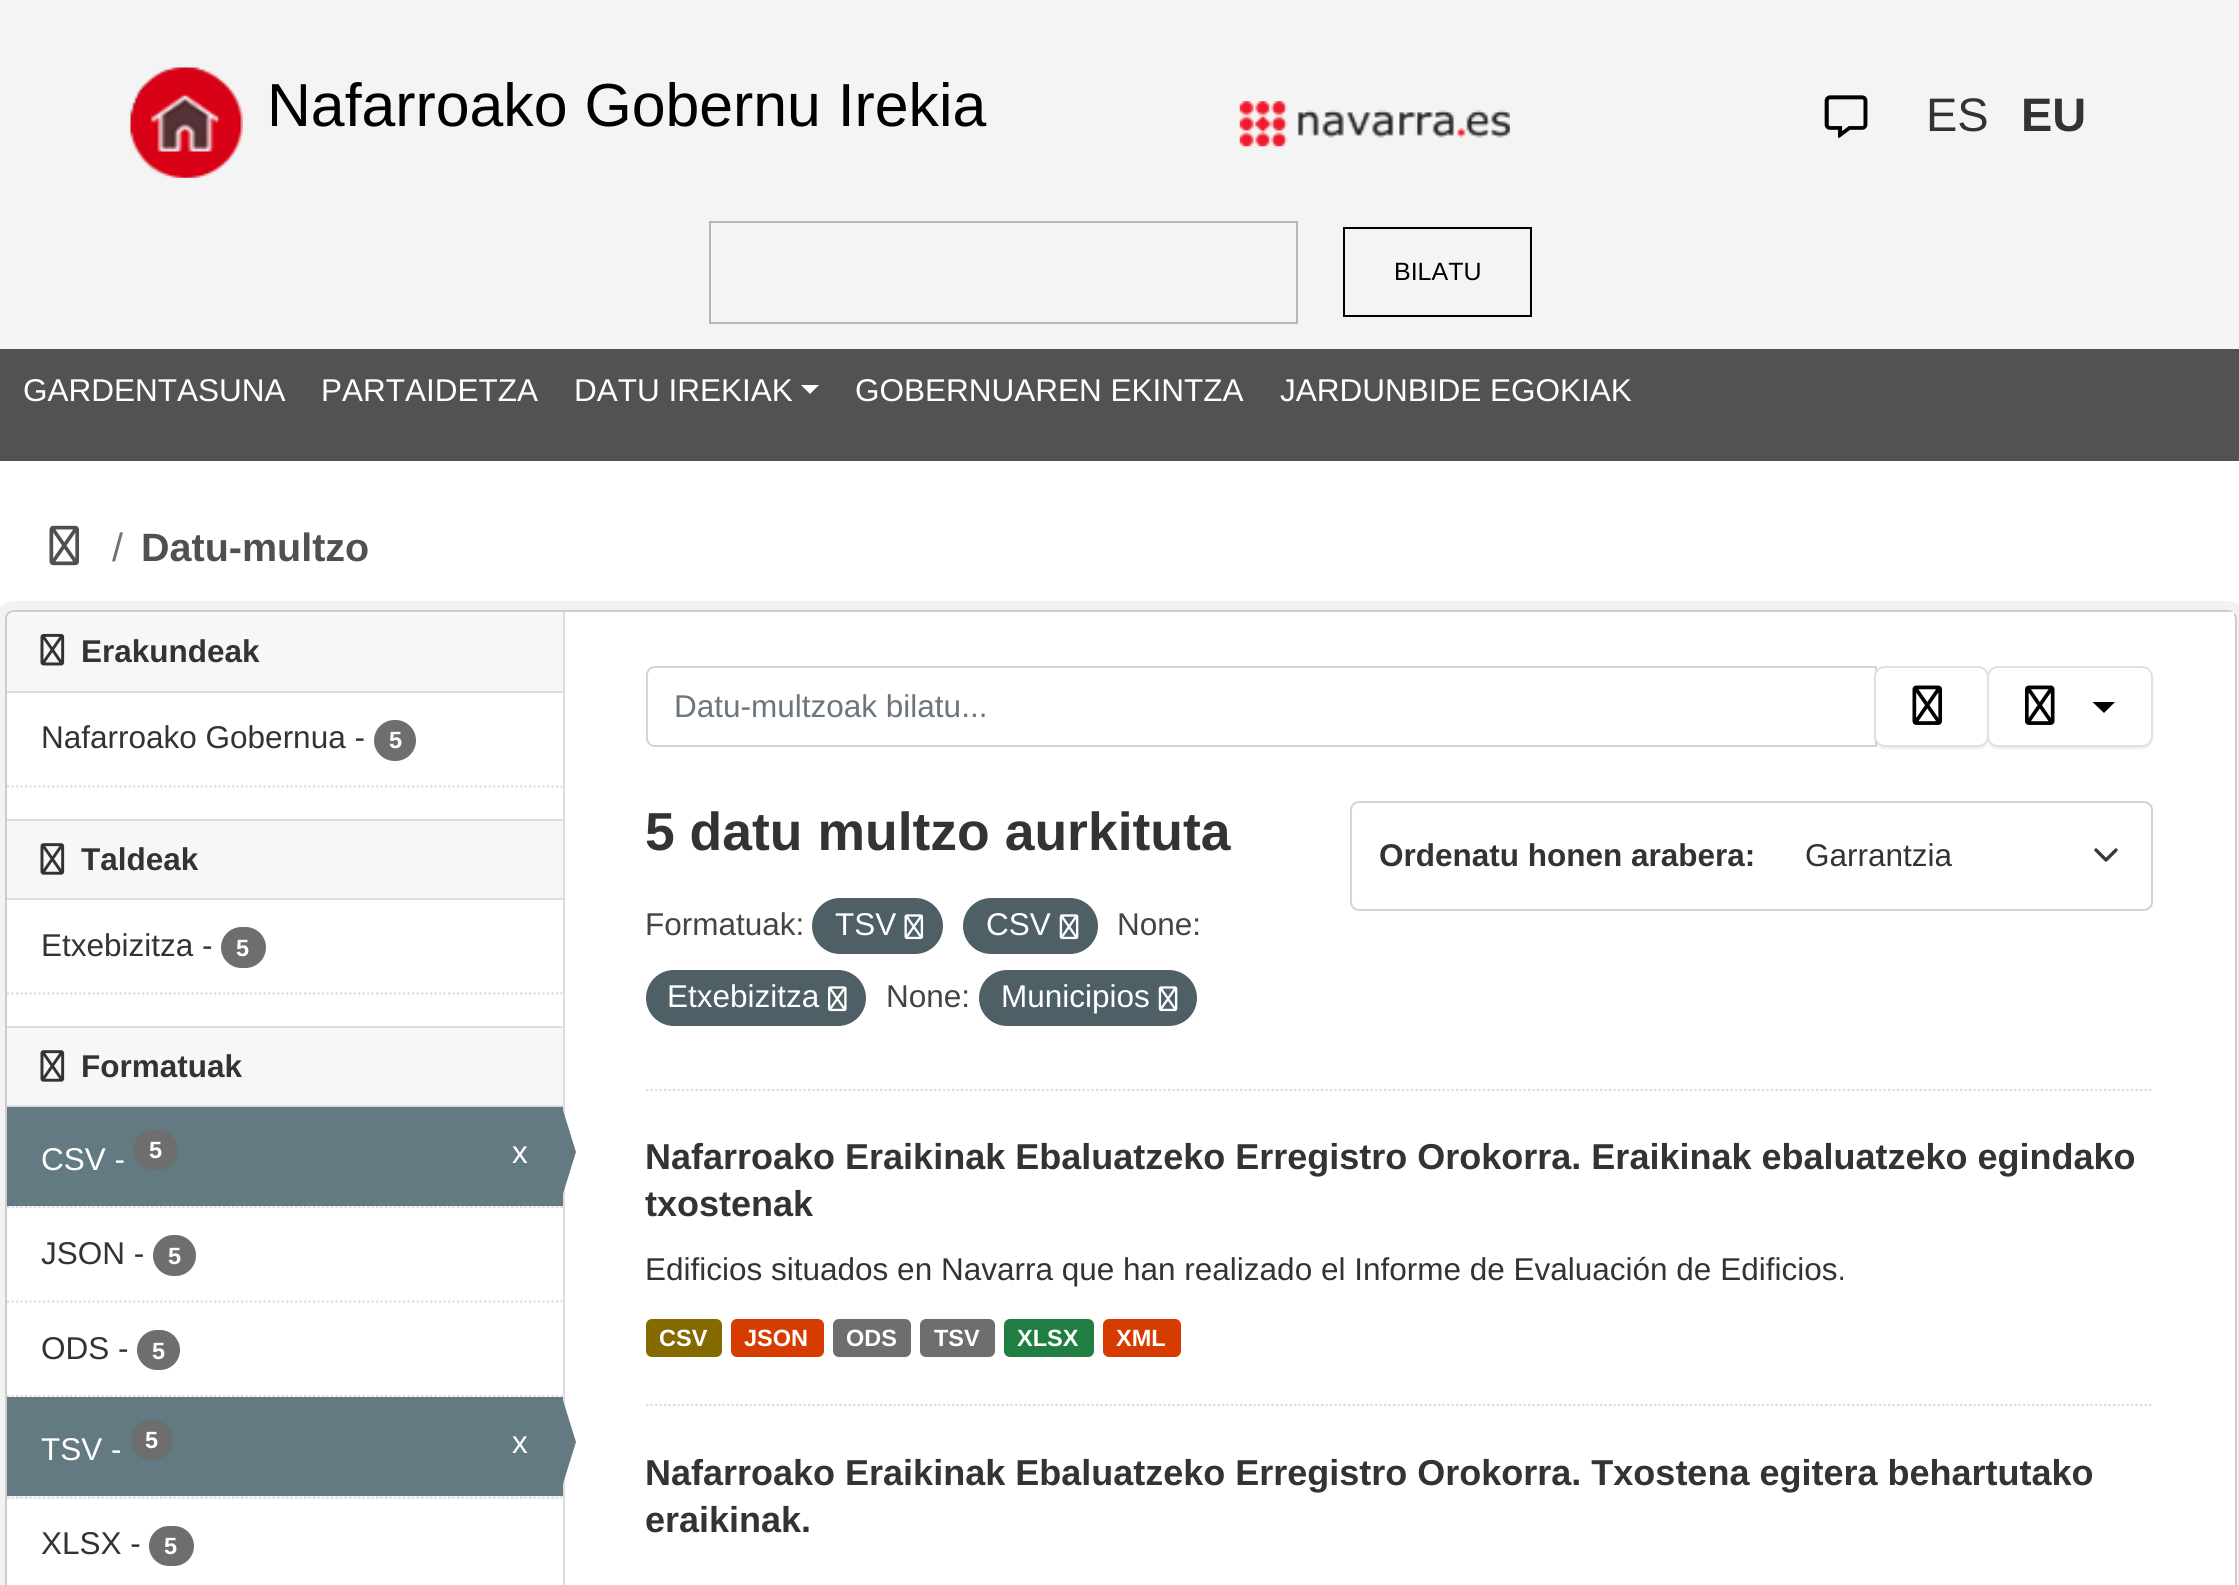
import math
import cairo

surface = cairo.ImageSurface(cairo.FORMAT_RGB24, 2239, 1585)
ctx = cairo.Context(surface)
options = cairo.FontOptions()
options.set_hint_metrics(cairo.HINT_METRICS_OFF)
options.set_hint_style(cairo.HINT_STYLE_NONE)
ctx.set_font_options(options)
ctx.set_miter_limit(4)


def round_rect(x, y, w, h, r):
    ctx.new_sub_path()
    for i, (u, v) in enumerate([(x + w - r, y + h - r), (x + r, y + h - r), (x + r, y + r), (x + w - r, y + r)]):
        ctx.arc(u, v, r, i * math.pi / 2, (i + 1) * math.pi / 2)
    ctx.close_path()


def shadow(x, y, w, h, r, blur, alpha):
    ctx.push_group_with_content(cairo.CONTENT_ALPHA)
    ctx.set_operator(cairo.OPERATOR_SOURCE)
    for i in range(15, -16, -2):
        e = blur * i / 6
        if min(w, h) + 2 * e > 0:
            ctx.set_source_rgba(0, 0, 0, alpha * math.erfc((i - 1) / 8.5) / 2)
            round_rect(x - e, y - e, w + 2 * e, h + 2 * e, max(0, min(r + e + blur * .6, min(w, h) / 2 + e)))
            ctx.fill()
    ctx.mask(ctx.pop_group())


def picture(path, x, y, w, h):
    ctx.save()
    ctx.set_source_surface(cairo.ImageSurface.create_from_png(path), x, y)
    ctx.rectangle(x, y, w, h)
    ctx.fill()
    ctx.restore()


ctx.set_source_rgb(0.957, 0.957, 0.957)
ctx.paint()
picture("img1.png", 130, 67, 113, 111)
ctx.select_font_face("Liberation Sans")
ctx.set_font_size(60.75)
ctx.set_source_rgb(0, 0, 0)
ctx.move_to(267, 126)
ctx.show_text("Nafarroako Gobernu Irekia")
picture("img2.png", 1239, 101, 271, 46)
picture("img3.png", 1824, 95, 44, 43)
ctx.set_font_size(47)
ctx.set_source_rgb(0.2, 0.2, 0.2)
ctx.move_to(1926, 131)
ctx.show_text("ES")
ctx.select_font_face("Liberation Sans", cairo.FONT_SLANT_NORMAL, cairo.FONT_WEIGHT_BOLD)
ctx.move_to(2021, 131)
ctx.show_text("EU")
ctx.rectangle(710, 222, 587, 101)
ctx.set_source_rgb(0.714, 0.714, 0.714)
ctx.stroke()
ctx.rectangle(1344, 228, 187, 88)
ctx.set_source_rgb(0, 0, 0)
ctx.stroke()
ctx.select_font_face("Liberation Sans")
ctx.set_font_size(25)
ctx.move_to(1394, 280)
ctx.show_text("BILATU")
ctx.set_source_rgb(0.322, 0.322, 0.322)
ctx.rectangle(0, 349, 2239, 112)
ctx.fill()
ctx.set_font_size(31.5)
ctx.set_source_rgb(1, 1, 1)
ctx.move_to(23, 401)
ctx.show_text("GARDENTASUNA")
ctx.move_to(321, 401)
ctx.show_text("PARTAIDETZA")
ctx.move_to(574, 401)
ctx.show_text("DATU IREKIAK")
ctx.new_path()
ctx.move_to(801, 385)
ctx.line_to(819, 385)
ctx.line_to(810, 394)
ctx.close_path()
ctx.fill()
ctx.move_to(855, 401)
ctx.show_text("GOBERNUAREN EKINTZA")
ctx.move_to(1280, 401)
ctx.show_text("JARDUNBIDE EGOKIAK")
ctx.rectangle(0, 461, 2239, 158)
ctx.fill()
picture("img4.png", 49, 525, 31, 41)
ctx.set_font_size(39.5)
ctx.set_source_rgb(0.424, 0.459, 0.49)
ctx.move_to(112, 561)
ctx.show_text("/")
ctx.select_font_face("Liberation Sans", cairo.FONT_SLANT_NORMAL, cairo.FONT_WEIGHT_BOLD)
ctx.set_source_rgb(0.314, 0.314, 0.314)
ctx.move_to(141, 561)
ctx.show_text("Datu-multzo")
round_rect(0.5, 605.5, 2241, 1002, 13.5)
ctx.set_source_rgb(0.949, 0.949, 0.949)
ctx.set_line_width(9)
ctx.stroke()
ctx.set_source_rgb(1, 1, 1)
round_rect(6, 611, 2230, 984, 8)
ctx.fill_preserve()
ctx.set_source_rgb(0.8, 0.8, 0.8)
ctx.set_line_width(2)
ctx.stroke()
ctx.set_source_rgb(0.965, 0.965, 0.965)
ctx.new_path()
ctx.move_to(14, 612)
ctx.line_to(563, 612)
ctx.line_to(563, 693)
ctx.line_to(7, 693)
ctx.line_to(7, 619)
ctx.curve_to(7, 615, 10, 612, 14, 612)
ctx.close_path()
ctx.fill()
ctx.set_source_rgb(0.867, 0.867, 0.867)
ctx.rectangle(7, 691, 556, 2)
ctx.fill()
picture("img5.png", 40, 633, 25, 33)
ctx.set_font_size(31.5)
ctx.set_source_rgb(0.2, 0.2, 0.2)
ctx.move_to(81, 662)
ctx.show_text("Erakundeak")
ctx.select_font_face("Liberation Sans")
ctx.move_to(41, 748)
ctx.show_text("Nafarroako Gobernua -")
ctx.set_source_rgb(0.431, 0.431, 0.431)
round_rect(374, 720, 42, 41, 20.5)
ctx.fill()
ctx.select_font_face("Liberation Sans", cairo.FONT_SLANT_NORMAL, cairo.FONT_WEIGHT_BOLD)
ctx.set_font_size(23.5)
ctx.set_source_rgb(1, 1, 1)
ctx.move_to(389, 748)
ctx.show_text("5")
ctx.new_path()
ctx.move_to(7, 786.5)
ctx.line_to(562.5, 786.5)
ctx.set_source_rgb(0.867, 0.867, 0.867)
ctx.set_line_width(2.2)
ctx.set_dash([2.25, 2.25])
ctx.stroke()
ctx.set_source_rgb(0.965, 0.965, 0.965)
ctx.rectangle(7, 821, 556, 77)
ctx.fill()
ctx.set_source_rgb(0.867, 0.867, 0.867)
ctx.rectangle(7, 819, 556, 2)
ctx.fill()
ctx.rectangle(7, 898, 556, 2)
ctx.fill()
picture("img6.png", 40, 843, 25, 32)
ctx.set_font_size(31.5)
ctx.set_source_rgb(0.2, 0.2, 0.2)
ctx.move_to(81, 870)
ctx.show_text("Taldeak")
ctx.select_font_face("Liberation Sans")
ctx.move_to(41, 956)
ctx.show_text("Etxebizitza -")
ctx.set_source_rgb(0.431, 0.431, 0.431)
round_rect(221, 927, 45, 41, 20.5)
ctx.fill()
ctx.select_font_face("Liberation Sans", cairo.FONT_SLANT_NORMAL, cairo.FONT_WEIGHT_BOLD)
ctx.set_font_size(23.5)
ctx.set_source_rgb(1, 1, 1)
ctx.move_to(236, 956)
ctx.show_text("5")
ctx.new_path()
ctx.move_to(7, 993.5)
ctx.line_to(562.5, 993.5)
ctx.set_source_rgb(0.867, 0.867, 0.867)
ctx.stroke()
ctx.set_source_rgb(0.965, 0.965, 0.965)
ctx.rectangle(7, 1028, 556, 77)
ctx.fill()
ctx.set_source_rgb(0.867, 0.867, 0.867)
ctx.rectangle(7, 1026, 556, 2)
ctx.fill()
ctx.rectangle(7, 1105, 556, 2)
ctx.fill()
picture("img6.png", 40, 1050, 25, 32)
ctx.set_font_size(31.5)
ctx.set_source_rgb(0.2, 0.2, 0.2)
ctx.move_to(81, 1077)
ctx.show_text("Formatuak")
ctx.set_source_rgb(0.965, 0.965, 0.965)
ctx.rectangle(9, 1206, 554, 2)
ctx.fill()
ctx.new_path()
ctx.move_to(7, 1207)
ctx.line_to(562.5, 1207)
ctx.set_source_rgb(0.867, 0.867, 0.867)
ctx.stroke()
ctx.set_source_rgb(0.392, 0.478, 0.51)
ctx.rectangle(7, 1107, 556, 99)
ctx.fill()
ctx.select_font_face("Liberation Sans")
ctx.set_source_rgb(1, 1, 1)
ctx.move_to(41, 1170)
ctx.show_text("CSV -")
ctx.set_source_rgb(0.431, 0.431, 0.431)
round_rect(133, 1130, 45, 40, 20)
ctx.fill()
ctx.select_font_face("Liberation Sans", cairo.FONT_SLANT_NORMAL, cairo.FONT_WEIGHT_BOLD)
ctx.set_font_size(23.5)
ctx.set_source_rgb(1, 1, 1)
ctx.move_to(149, 1158)
ctx.show_text("5")
ctx.select_font_face("Liberation Sans")
ctx.set_font_size(31.5)
ctx.move_to(512, 1163)
ctx.show_text("x")
ctx.set_source_rgb(0.867, 0.867, 0.867)
ctx.rectangle(563, 612, 2, 973)
ctx.fill()
ctx.set_source_rgb(0.392, 0.478, 0.51)
ctx.new_path()
ctx.move_to(562, 1197)
ctx.line_to(562, 1107)
ctx.line_to(576, 1152)
ctx.close_path()
ctx.fill()
ctx.new_path()
ctx.move_to(7, 1301.5)
ctx.line_to(562.5, 1301.5)
ctx.set_source_rgb(0.867, 0.867, 0.867)
ctx.stroke()
ctx.set_source_rgb(0.2, 0.2, 0.2)
ctx.move_to(41, 1264)
ctx.show_text("JSON -")
ctx.set_source_rgb(0.431, 0.431, 0.431)
round_rect(153, 1235, 43, 41, 20.5)
ctx.fill()
ctx.select_font_face("Liberation Sans", cairo.FONT_SLANT_NORMAL, cairo.FONT_WEIGHT_BOLD)
ctx.set_font_size(23.5)
ctx.set_source_rgb(1, 1, 1)
ctx.move_to(168, 1264)
ctx.show_text("5")
ctx.new_path()
ctx.move_to(7, 1396)
ctx.line_to(562.5, 1396)
ctx.set_source_rgb(0.867, 0.867, 0.867)
ctx.stroke()
ctx.select_font_face("Liberation Sans")
ctx.set_font_size(31.5)
ctx.set_source_rgb(0.2, 0.2, 0.2)
ctx.move_to(41, 1359)
ctx.show_text("ODS -")
ctx.set_source_rgb(0.431, 0.431, 0.431)
round_rect(137, 1330, 43, 40, 20)
ctx.fill()
ctx.select_font_face("Liberation Sans", cairo.FONT_SLANT_NORMAL, cairo.FONT_WEIGHT_BOLD)
ctx.set_font_size(23.5)
ctx.set_source_rgb(1, 1, 1)
ctx.move_to(152, 1359)
ctx.show_text("5")
ctx.set_source_rgb(0.965, 0.965, 0.965)
ctx.rectangle(7, 1496, 556, 3)
ctx.fill()
ctx.new_path()
ctx.move_to(7, 1497.5)
ctx.line_to(562.5, 1497.5)
ctx.set_source_rgb(0.867, 0.867, 0.867)
ctx.stroke()
ctx.set_source_rgb(0.392, 0.478, 0.51)
ctx.rectangle(7, 1397, 556, 99)
ctx.fill()
ctx.select_font_face("Liberation Sans")
ctx.set_font_size(31.5)
ctx.set_source_rgb(1, 1, 1)
ctx.move_to(41, 1460)
ctx.show_text("TSV -")
ctx.set_source_rgb(0.431, 0.431, 0.431)
round_rect(131, 1420, 42, 40, 20)
ctx.fill()
ctx.select_font_face("Liberation Sans", cairo.FONT_SLANT_NORMAL, cairo.FONT_WEIGHT_BOLD)
ctx.set_font_size(23.5)
ctx.set_source_rgb(1, 1, 1)
ctx.move_to(145, 1448)
ctx.show_text("5")
ctx.select_font_face("Liberation Sans")
ctx.set_font_size(31.5)
ctx.move_to(512, 1453)
ctx.show_text("x")
ctx.set_source_rgb(0.392, 0.478, 0.51)
ctx.new_path()
ctx.move_to(562, 1487)
ctx.line_to(562, 1397)
ctx.line_to(576, 1442)
ctx.close_path()
ctx.fill()
ctx.set_source_rgb(0.2, 0.2, 0.2)
ctx.move_to(41, 1554)
ctx.show_text("XLSX -")
ctx.set_source_rgb(0.431, 0.431, 0.431)
round_rect(149, 1526, 45, 40, 20)
ctx.fill()
ctx.select_font_face("Liberation Sans", cairo.FONT_SLANT_NORMAL, cairo.FONT_WEIGHT_BOLD)
ctx.set_font_size(23.5)
ctx.set_source_rgb(1, 1, 1)
ctx.move_to(164, 1554)
ctx.show_text("5")
ctx.set_source_rgba(1, 1, 1, 0.95)
ctx.rectangle(2229, 612, 5, 3)
ctx.fill()
ctx.new_path()
ctx.move_to(646, 1090)
ctx.line_to(2153, 1090)
ctx.set_source_rgb(0.867, 0.867, 0.867)
ctx.stroke()
ctx.new_path()
ctx.move_to(655, 667)
ctx.line_to(1876, 667)
ctx.line_to(1876, 746)
ctx.line_to(655, 746)
ctx.curve_to(650.5, 746, 647, 742.5, 647, 738)
ctx.line_to(647, 675)
ctx.curve_to(647, 670.5, 650.5, 667, 655, 667)
ctx.close_path()
ctx.set_source_rgb(0.808, 0.831, 0.855)
ctx.set_line_width(2)
ctx.set_dash([])
ctx.stroke()
ctx.select_font_face("Liberation Sans")
ctx.set_font_size(31.5)
ctx.set_source_rgb(0.424, 0.459, 0.49)
ctx.move_to(674, 717)
ctx.show_text("Datu-multzoak bilatu...")
ctx.set_source_rgb(0, 0, 0)
shadow(1874, 668, 115, 81, 11, 1, 0.07)
ctx.set_source_rgb(1, 1, 1)
round_rect(1875, 667, 113, 79, 10)
ctx.fill_preserve()
ctx.set_source_rgb(0.871, 0.886, 0.902)
ctx.stroke()
picture("img7.png", 1912, 685, 31, 40)
ctx.set_source_rgb(0, 0, 0)
shadow(1987, 668, 166, 81, 11, 1, 0.07)
ctx.set_source_rgb(1, 1, 1)
round_rect(1988, 667, 164, 79, 10)
ctx.fill_preserve()
ctx.set_source_rgb(0.871, 0.886, 0.902)
ctx.stroke()
picture("img8.png", 2025, 685, 30, 40)
ctx.set_source_rgb(0, 0, 0)
ctx.new_path()
ctx.move_to(2092.5, 702)
ctx.line_to(2115, 702)
ctx.line_to(2104, 713)
ctx.close_path()
ctx.fill()
ctx.select_font_face("Liberation Sans", cairo.FONT_SLANT_NORMAL, cairo.FONT_WEIGHT_BOLD)
ctx.set_font_size(53.5)
ctx.set_source_rgb(0.2, 0.2, 0.2)
ctx.move_to(645, 850)
ctx.show_text("5 datu multzo aurkituta")
ctx.new_path()
ctx.move_to(2096, 850)
ctx.line_to(2106, 860)
ctx.line_to(2116, 850)
ctx.set_source_rgb(0.204, 0.227, 0.251)
ctx.set_line_width(3.4)
ctx.set_line_cap(cairo.LINE_CAP_ROUND)
ctx.set_line_join(cairo.LINE_JOIN_ROUND)
ctx.stroke()
round_rect(1351, 802, 801, 108, 8)
ctx.set_source_rgb(0.808, 0.831, 0.855)
ctx.set_line_width(2)
ctx.set_line_cap(cairo.LINE_CAP_BUTT)
ctx.set_line_join(cairo.LINE_JOIN_MITER)
ctx.stroke()
ctx.set_font_size(31.5)
ctx.set_source_rgb(0.2, 0.2, 0.2)
ctx.move_to(1379, 866)
ctx.show_text("Ordenatu honen arabera:")
ctx.select_font_face("Liberation Sans")
ctx.move_to(1805, 866)
ctx.show_text("Garrantzia")
ctx.set_source_rgb(0.267, 0.267, 0.267)
ctx.move_to(645, 935)
ctx.show_text("Formatuak:")
ctx.set_source_rgb(0.306, 0.373, 0.396)
round_rect(812, 898, 131, 56, 28)
ctx.fill()
ctx.set_source_rgb(1, 1, 1)
ctx.move_to(835, 935)
ctx.show_text("TSV")
picture("img9.png", 904, 914, 20, 26)
ctx.set_source_rgb(0.306, 0.373, 0.396)
round_rect(963, 898, 135, 56, 28)
ctx.fill()
ctx.set_source_rgb(1, 1, 1)
ctx.move_to(986, 935)
ctx.show_text("CSV")
picture("img10.png", 1059, 914, 20, 26)
ctx.set_source_rgb(0.267, 0.267, 0.267)
ctx.move_to(1117, 935)
ctx.show_text("None:")
ctx.set_source_rgb(0.306, 0.373, 0.396)
round_rect(646, 970, 220, 56, 28)
ctx.fill()
ctx.set_source_rgb(1, 1, 1)
ctx.move_to(667, 1007)
ctx.show_text("Etxebizitza")
picture("img11.png", 828, 986, 19, 26)
ctx.set_source_rgb(0.267, 0.267, 0.267)
ctx.move_to(886, 1007)
ctx.show_text("None:")
ctx.set_source_rgb(0.306, 0.373, 0.396)
round_rect(979, 970, 218, 56, 28)
ctx.fill()
ctx.set_source_rgb(1, 1, 1)
ctx.move_to(1001, 1007)
ctx.show_text("Municipios")
picture("img10.png", 1158, 986, 20, 26)
ctx.new_path()
ctx.move_to(646, 1405)
ctx.line_to(2153, 1405)
ctx.set_source_rgb(0.867, 0.867, 0.867)
ctx.set_line_width(2.2)
ctx.set_dash([2.25, 2.25])
ctx.stroke()
ctx.select_font_face("Liberation Sans", cairo.FONT_SLANT_NORMAL, cairo.FONT_WEIGHT_BOLD)
ctx.set_font_size(36)
ctx.set_source_rgb(0.2, 0.2, 0.2)
ctx.move_to(645, 1169)
ctx.show_text("Nafarroako Eraikinak Ebaluatzeko Erregistro Orokorra. Eraikinak ebaluatzeko egindako")
ctx.move_to(645, 1216)
ctx.show_text("txostenak")
ctx.select_font_face("Liberation Sans")
ctx.set_font_size(31.5)
ctx.move_to(645, 1280)
ctx.show_text("Edificios situados en Navarra que han realizado el Informe de Evaluación de Edificios.")
ctx.set_source_rgb(0.522, 0.416, 0)
round_rect(646, 1319, 76, 38, 6)
ctx.fill()
ctx.select_font_face("Liberation Sans", cairo.FONT_SLANT_NORMAL, cairo.FONT_WEIGHT_BOLD)
ctx.set_font_size(23.5)
ctx.set_source_rgb(1, 1, 1)
ctx.move_to(659, 1346)
ctx.show_text("CSV")
ctx.set_source_rgb(0.839, 0.231, 0)
round_rect(731, 1319, 93, 38, 6)
ctx.fill()
ctx.set_source_rgb(1, 1, 1)
ctx.move_to(744, 1346)
ctx.show_text("JSON")
ctx.set_source_rgb(0.431, 0.431, 0.431)
round_rect(833, 1319, 78, 38, 6)
ctx.fill()
ctx.set_source_rgb(1, 1, 1)
ctx.move_to(846, 1346)
ctx.show_text("ODS")
ctx.set_source_rgb(0.431, 0.431, 0.431)
round_rect(920, 1319, 75, 38, 6)
ctx.fill()
ctx.set_source_rgb(1, 1, 1)
ctx.move_to(934, 1346)
ctx.show_text("TSV")
ctx.set_source_rgb(0.125, 0.494, 0.259)
round_rect(1004, 1319, 90, 38, 6)
ctx.fill()
ctx.set_source_rgb(1, 1, 1)
ctx.move_to(1017, 1346)
ctx.show_text("XLSX")
ctx.set_source_rgb(0.839, 0.231, 0)
round_rect(1103, 1319, 78, 38, 6)
ctx.fill()
ctx.set_source_rgb(1, 1, 1)
ctx.move_to(1116, 1346)
ctx.show_text("XML")
ctx.set_font_size(36)
ctx.set_source_rgb(0.2, 0.2, 0.2)
ctx.move_to(645, 1485)
ctx.show_text("Nafarroako Eraikinak Ebaluatzeko Erregistro Orokorra. Txostena egitera behartutako")
ctx.move_to(645, 1532)
ctx.show_text("eraikinak.")
surface.write_to_png("page.png")
